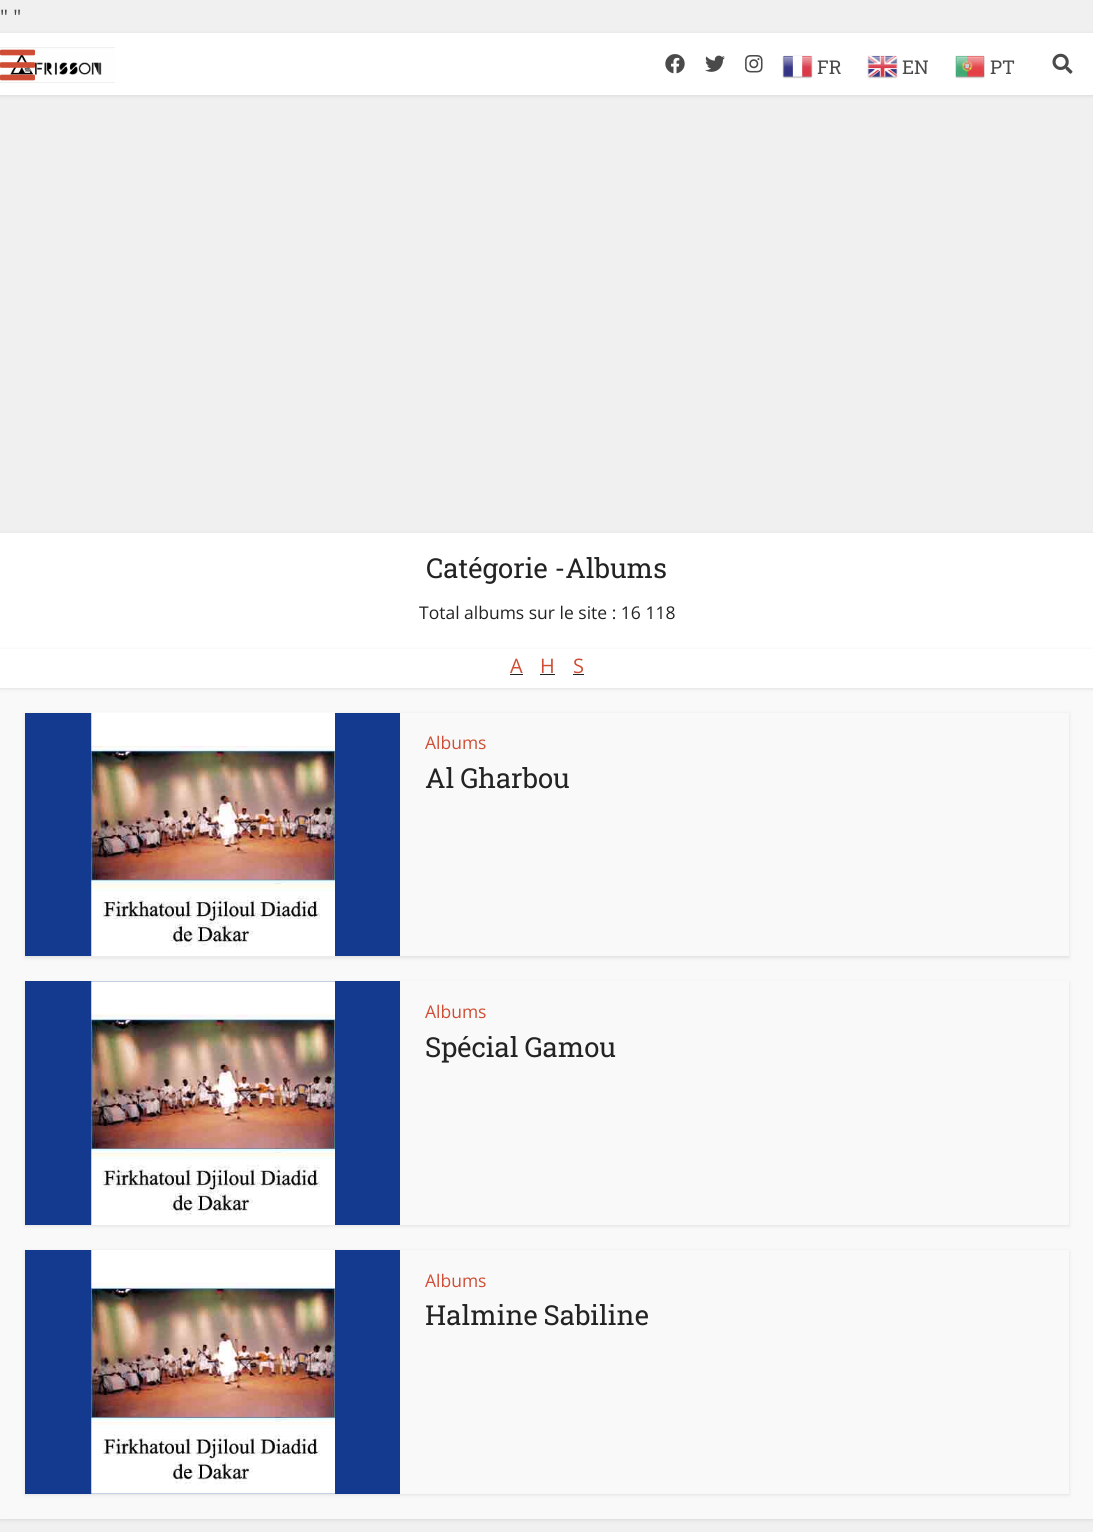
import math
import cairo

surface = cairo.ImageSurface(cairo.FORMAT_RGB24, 1093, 1532)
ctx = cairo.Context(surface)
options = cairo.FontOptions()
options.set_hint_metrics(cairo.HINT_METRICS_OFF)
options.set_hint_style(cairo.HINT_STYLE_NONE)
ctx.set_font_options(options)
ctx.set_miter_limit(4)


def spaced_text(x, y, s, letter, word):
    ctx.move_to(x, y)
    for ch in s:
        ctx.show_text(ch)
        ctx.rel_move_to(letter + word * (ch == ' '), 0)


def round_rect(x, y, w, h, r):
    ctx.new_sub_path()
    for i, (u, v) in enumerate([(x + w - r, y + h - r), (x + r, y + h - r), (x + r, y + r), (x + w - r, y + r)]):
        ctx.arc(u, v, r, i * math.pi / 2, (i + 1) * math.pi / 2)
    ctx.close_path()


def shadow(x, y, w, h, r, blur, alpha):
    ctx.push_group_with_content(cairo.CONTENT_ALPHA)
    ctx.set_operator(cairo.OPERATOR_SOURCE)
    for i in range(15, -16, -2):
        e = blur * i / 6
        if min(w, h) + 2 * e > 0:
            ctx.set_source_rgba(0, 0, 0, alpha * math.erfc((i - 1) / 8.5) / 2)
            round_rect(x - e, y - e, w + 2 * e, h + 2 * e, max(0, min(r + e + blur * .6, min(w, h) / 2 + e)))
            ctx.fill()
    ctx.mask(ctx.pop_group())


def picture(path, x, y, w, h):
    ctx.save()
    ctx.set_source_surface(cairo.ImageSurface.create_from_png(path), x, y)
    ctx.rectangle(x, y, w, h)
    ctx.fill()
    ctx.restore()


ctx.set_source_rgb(0.941, 0.941, 0.941)
ctx.paint()
ctx.select_font_face("Open Sans")
ctx.set_font_size(20)
ctx.set_source_rgb(0.267, 0.267, 0.267)
ctx.move_to(0, 24)
ctx.show_text("\" \"")
ctx.set_source_rgb(0, 0, 0)
shadow(0, 34, 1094, 62, 0, 2, 0.1)
ctx.set_source_rgb(1, 1, 1)
ctx.rectangle(0, 33, 1093, 62)
ctx.fill()
picture("img1.png", 0, 47, 115, 36)
picture("img2.png", 0, 49, 35, 32)
picture("img3.png", 665, 54, 20, 20)
picture("img4.png", 705, 55, 20, 17)
picture("img5.png", 745, 55, 18, 18)
picture("img6.png", 782, 55, 31, 24)
ctx.select_font_face("Roboto Slab")
ctx.set_font_size(19)
ctx.set_source_rgb(0.29, 0.29, 0.29)
ctx.move_to(817, 74)
ctx.show_text("FR")
picture("img7.png", 867, 55, 31, 24)
ctx.move_to(902, 74)
ctx.show_text("EN")
picture("img8.png", 955, 55, 30, 24)
ctx.move_to(990, 74)
ctx.show_text("PT")
picture("img9.png", 1052, 53, 21, 21)
ctx.set_source_rgb(0, 0, 0)
shadow(0, 534, 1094, 986, 0, 2, 0.1)
ctx.set_source_rgb(0.976, 0.976, 0.976)
ctx.rectangle(0, 688, 1093, 831)
ctx.fill()
ctx.set_source_rgb(1, 1, 1)
ctx.rectangle(0, 533, 1093, 116)
ctx.fill()
ctx.set_font_size(27.5)
ctx.set_source_rgb(0.137, 0.137, 0.137)
ctx.move_to(426, 578)
ctx.show_text("Catégorie -Albums")
ctx.select_font_face("Open Sans")
ctx.set_font_size(17.5)
ctx.move_to(419, 619)
ctx.show_text("Total albums sur le site : 16 118")
ctx.set_source_rgb(0, 0, 0)
shadow(0, 650, 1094, 39, 0, 2, 0.1)
ctx.set_source_rgb(1, 1, 1)
ctx.rectangle(0, 649, 1093, 39)
ctx.fill()
ctx.set_font_size(20)
ctx.set_source_rgb(0.812, 0.302, 0.208)
ctx.move_to(510, 673)
ctx.show_text("A")
ctx.set_source_rgb(0.137, 0.137, 0.137)
ctx.rectangle(510, 674, 13, 1)
ctx.fill()
ctx.set_source_rgb(0.812, 0.302, 0.208)
ctx.move_to(540, 673)
ctx.show_text("H")
ctx.set_source_rgb(0.137, 0.137, 0.137)
ctx.rectangle(540, 674, 15, 1)
ctx.fill()
ctx.set_source_rgb(0.812, 0.302, 0.208)
ctx.move_to(573, 673)
ctx.show_text("S")
ctx.set_source_rgb(0.137, 0.137, 0.137)
ctx.rectangle(573, 674, 11, 1)
ctx.fill()
ctx.set_source_rgb(0, 0, 0)
shadow(25, 714, 1044, 244, 0, 2, 0.1)
ctx.set_source_rgb(0.976, 0.976, 0.976)
ctx.rectangle(400, 713, 669, 243)
ctx.fill()
ctx.set_source_rgb(0.078, 0.227, 0.557)
ctx.rectangle(25, 713, 375, 243)
ctx.fill()
picture("img10.png", 91, 712, 244, 245)
ctx.set_font_size(17.5)
ctx.set_source_rgb(0.812, 0.302, 0.208)
ctx.move_to(425, 749)
ctx.show_text("Albums")
ctx.select_font_face("Roboto Slab")
ctx.set_font_size(27.5)
ctx.set_source_rgb(0.137, 0.137, 0.137)
spaced_text(425, 788, "Al Gharbou", 0, -1)
ctx.set_source_rgb(0, 0, 0)
shadow(25, 983, 1044, 243, 0, 2, 0.1)
ctx.set_source_rgb(0.976, 0.976, 0.976)
ctx.rectangle(400, 981, 669, 244)
ctx.fill()
ctx.set_source_rgb(0.078, 0.227, 0.557)
ctx.rectangle(25, 981, 375, 244)
ctx.fill()
picture("img11.png", 91, 981, 244, 244)
ctx.select_font_face("Open Sans")
ctx.set_font_size(17.5)
ctx.set_source_rgb(0.812, 0.302, 0.208)
ctx.move_to(425, 1018)
ctx.show_text("Albums")
ctx.select_font_face("Roboto Slab")
ctx.set_font_size(27.5)
ctx.set_source_rgb(0.137, 0.137, 0.137)
spaced_text(425, 1057, "Spécial Gamou", 0, -1)
ctx.set_source_rgb(0, 0, 0)
shadow(25, 1251, 1044, 244, 0, 2, 0.1)
ctx.set_source_rgb(0.976, 0.976, 0.976)
ctx.rectangle(400, 1250, 669, 244)
ctx.fill()
ctx.set_source_rgb(0.078, 0.227, 0.557)
ctx.rectangle(25, 1250, 375, 244)
ctx.fill()
picture("img12.png", 91, 1250, 244, 244)
ctx.select_font_face("Open Sans")
ctx.set_font_size(17.5)
ctx.set_source_rgb(0.812, 0.302, 0.208)
ctx.move_to(425, 1287)
ctx.show_text("Albums")
ctx.select_font_face("Roboto Slab")
ctx.set_font_size(27.5)
ctx.set_source_rgb(0.137, 0.137, 0.137)
spaced_text(425, 1325, "Halmine Sabiline", 0, -1)
surface.write_to_png("page.png")
